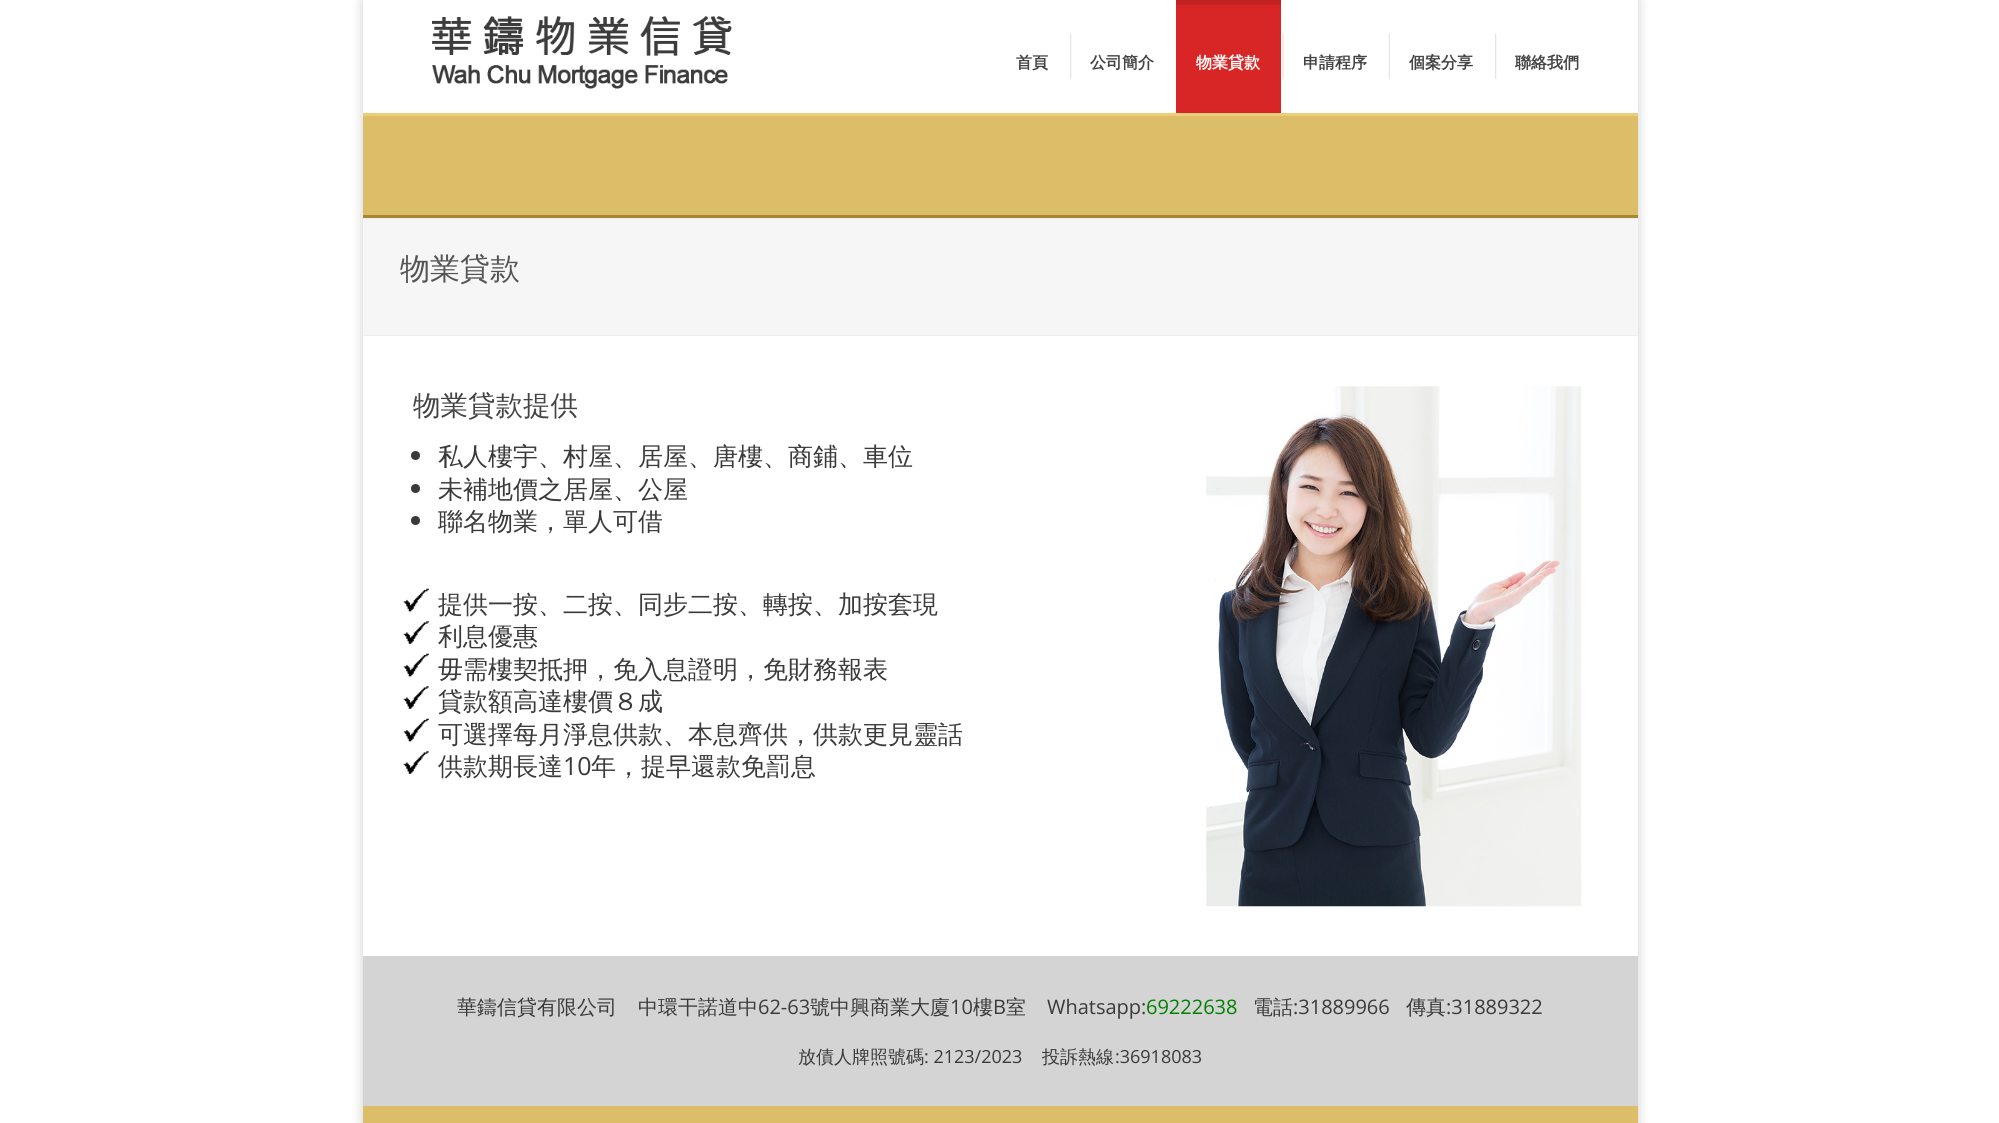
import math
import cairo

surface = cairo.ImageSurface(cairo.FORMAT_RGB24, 1999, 1123)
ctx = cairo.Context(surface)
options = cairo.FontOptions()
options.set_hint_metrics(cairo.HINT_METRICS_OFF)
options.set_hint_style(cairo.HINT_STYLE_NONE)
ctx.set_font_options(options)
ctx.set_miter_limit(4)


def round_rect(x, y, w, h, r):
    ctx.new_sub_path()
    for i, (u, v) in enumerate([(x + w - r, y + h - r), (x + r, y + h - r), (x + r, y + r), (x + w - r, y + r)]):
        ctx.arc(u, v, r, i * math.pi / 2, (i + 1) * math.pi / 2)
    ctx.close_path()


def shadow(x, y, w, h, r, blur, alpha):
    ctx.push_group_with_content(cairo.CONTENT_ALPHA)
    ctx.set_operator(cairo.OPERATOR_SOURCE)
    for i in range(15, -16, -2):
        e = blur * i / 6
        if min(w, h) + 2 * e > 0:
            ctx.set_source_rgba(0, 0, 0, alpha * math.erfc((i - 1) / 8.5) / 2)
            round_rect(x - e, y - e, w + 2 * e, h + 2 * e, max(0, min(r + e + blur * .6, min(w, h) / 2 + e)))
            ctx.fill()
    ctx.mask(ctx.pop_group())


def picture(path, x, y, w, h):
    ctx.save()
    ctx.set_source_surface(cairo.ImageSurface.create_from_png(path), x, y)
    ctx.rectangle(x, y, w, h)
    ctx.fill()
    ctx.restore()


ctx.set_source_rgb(1, 1, 1)
ctx.paint()
ctx.set_source_rgb(0, 0, 0)
shadow(363, 0, 1275, 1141, 0, 6, 0.1)
shadow(363, 0, 1275, 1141, 0, 6, 0.1)
ctx.set_source_rgb(1, 1, 1)
ctx.rectangle(363, 0, 1275, 956)
ctx.fill()
picture("img1.png", 432, 16, 300, 73)
ctx.select_font_face("WenQuanYi Zen Hei", cairo.FONT_SLANT_NORMAL, cairo.FONT_WEIGHT_BOLD)
ctx.set_font_size(16)
ctx.set_source_rgb(0.267, 0.267, 0.267)
ctx.move_to(1016, 68)
ctx.show_text("首頁")
picture("img2.png", 1070, 33, 2, 46)
ctx.move_to(1090, 68)
ctx.show_text("公司簡介")
ctx.set_source_rgb(0.847, 0.149, 0.149)
ctx.rectangle(1176, 5, 105, 108)
ctx.fill()
ctx.set_source_rgb(0.761, 0.133, 0.133)
ctx.rectangle(1176, 0, 105, 5)
ctx.fill()
ctx.set_source_rgb(1, 1, 1)
ctx.move_to(1196, 68)
ctx.show_text("物業貸款")
picture("img3.png", 1282, 33, 2, 46)
ctx.set_source_rgb(0.267, 0.267, 0.267)
ctx.move_to(1303, 68)
ctx.show_text("申請程序")
picture("img4.png", 1388, 33, 2, 46)
ctx.move_to(1409, 68)
ctx.show_text("個案分享")
picture("img2.png", 1495, 33, 2, 46)
ctx.move_to(1515, 68)
ctx.show_text("聯絡我們")
ctx.set_source_rgb(0.863, 0.741, 0.408)
ctx.rectangle(363, 116, 1275, 99)
ctx.fill()
ctx.set_source_rgb(0.925, 0.808, 0.478)
ctx.rectangle(363, 113, 1275, 3)
ctx.fill()
ctx.set_source_rgb(0.655, 0.529, 0.196)
ctx.rectangle(363, 215, 1275, 3)
ctx.fill()
ctx.set_source_rgb(0.961, 0.961, 0.961)
ctx.rectangle(363, 219, 1275, 116)
ctx.fill()
ctx.set_source_rgb(0.933, 0.933, 0.933)
ctx.rectangle(363, 218, 1275, 1)
ctx.fill()
ctx.rectangle(363, 335, 1275, 1)
ctx.fill()
ctx.select_font_face("WenQuanYi Zen Hei Medium")
ctx.set_font_size(30)
ctx.set_source_rgb(0.333, 0.333, 0.333)
ctx.move_to(400, 279)
ctx.show_text("物業貸款")
ctx.set_font_size(27.5)
ctx.set_source_rgb(0.267, 0.267, 0.267)
ctx.move_to(413, 415)
ctx.show_text("物業貸款提供")
ctx.set_source_rgb(0.227, 0.227, 0.227)
ctx.new_path()
ctx.arc(415.5, 455.5, 4.5, 0, 2 * math.pi)
ctx.fill()
ctx.set_font_size(25)
ctx.move_to(438, 465)
ctx.show_text("私人樓宇、村屋、居屋、唐樓、商鋪、車位")
ctx.new_path()
ctx.arc(415.5, 488.5, 4.5, 0, 2 * math.pi)
ctx.fill()
ctx.move_to(438, 498)
ctx.show_text("未補地價之居屋、公屋")
ctx.new_path()
ctx.arc(415.5, 520.5, 4.5, 0, 2 * math.pi)
ctx.fill()
ctx.move_to(438, 530)
ctx.show_text("聯名物業，單人可借")
picture("img5.png", 403, 588, 26, 24)
ctx.move_to(438, 613)
ctx.show_text("提供一按、二按、同步二按、轉按、加按套現")
picture("img6.png", 403, 621, 26, 23)
ctx.move_to(438, 645)
ctx.show_text("利息優惠")
picture("img7.png", 403, 653, 26, 24)
ctx.move_to(438, 678)
ctx.show_text("毋需樓契抵押，免入息證明，免財務報表")
picture("img6.png", 403, 686, 26, 23)
ctx.move_to(438, 710)
ctx.show_text("貸款額高達樓價８成")
picture("img7.png", 403, 718, 26, 24)
ctx.move_to(438, 743)
ctx.show_text("可選擇每月淨息供款、本息齊供，供款更見靈話")
picture("img6.png", 403, 751, 26, 23)
ctx.move_to(438, 775)
ctx.show_text("供款期長達")
ctx.select_font_face("Open Sans")
ctx.move_to(563, 775)
ctx.show_text("10")
ctx.select_font_face("WenQuanYi Zen Hei Medium")
ctx.move_to(591, 775)
ctx.show_text("年，提早還款免罰息")
picture("img8.png", 1206, 386, 376, 521)
ctx.set_source_rgb(0.831, 0.831, 0.831)
ctx.rectangle(363, 956, 1275, 150)
ctx.fill()
ctx.set_font_size(20)
ctx.set_source_rgb(0.227, 0.227, 0.227)
ctx.move_to(457, 1014)
ctx.show_text("華鑄信貸有限公司")
ctx.move_to(638, 1014)
ctx.show_text("中環干諾道中")
ctx.select_font_face("Open Sans")
ctx.move_to(758, 1014)
ctx.show_text("62-63")
ctx.select_font_face("WenQuanYi Zen Hei Medium")
ctx.move_to(810, 1014)
ctx.show_text("號中興商業大廈")
ctx.select_font_face("Open Sans")
ctx.move_to(950, 1014)
ctx.show_text("10")
ctx.select_font_face("WenQuanYi Zen Hei Medium")
ctx.move_to(973, 1014)
ctx.show_text("樓")
ctx.select_font_face("Open Sans")
ctx.move_to(993, 1014)
ctx.show_text("B")
ctx.select_font_face("WenQuanYi Zen Hei Medium")
ctx.move_to(1006, 1014)
ctx.show_text("室")
ctx.select_font_face("Open Sans")
ctx.move_to(1047, 1014)
ctx.show_text("Whatsapp:")
ctx.set_source_rgb(0, 0.502, 0)
ctx.move_to(1146, 1014)
ctx.show_text("69222638")
ctx.select_font_face("WenQuanYi Zen Hei Medium")
ctx.set_source_rgb(0.227, 0.227, 0.227)
ctx.move_to(1253, 1014)
ctx.show_text("電話")
ctx.select_font_face("Open Sans")
ctx.move_to(1293, 1014)
ctx.show_text(":31889966")
ctx.select_font_face("WenQuanYi Zen Hei Medium")
ctx.move_to(1406, 1014)
ctx.show_text("傳真")
ctx.select_font_face("Open Sans")
ctx.move_to(1446, 1014)
ctx.show_text(":31889322")
ctx.select_font_face("WenQuanYi Zen Hei Medium")
ctx.set_font_size(18)
ctx.move_to(798, 1063)
ctx.show_text("放債人牌照號碼")
ctx.select_font_face("Open Sans")
ctx.move_to(924, 1063)
ctx.show_text(": 2123/2023")
ctx.select_font_face("WenQuanYi Zen Hei Medium")
ctx.move_to(1042, 1063)
ctx.show_text("投訴熱線")
ctx.select_font_face("Open Sans")
ctx.move_to(1115, 1063)
ctx.show_text(":36918083")
ctx.set_source_rgb(0.863, 0.741, 0.408)
ctx.rectangle(363, 1106, 1275, 17)
ctx.fill()
surface.write_to_png("page.png")
